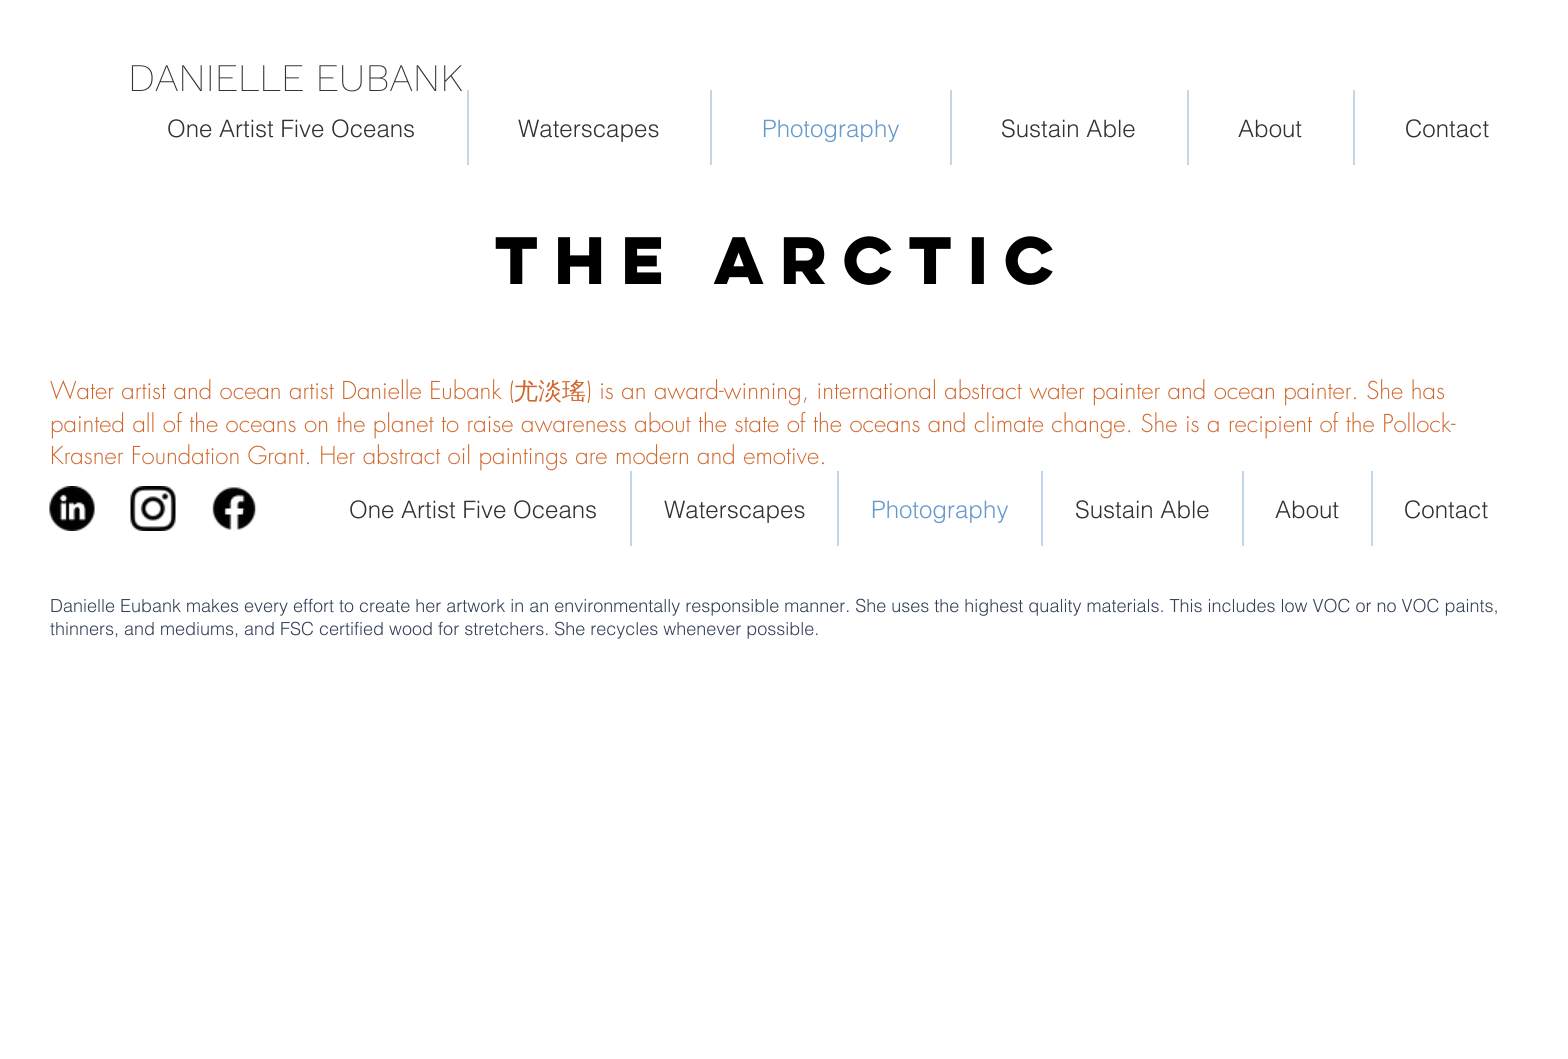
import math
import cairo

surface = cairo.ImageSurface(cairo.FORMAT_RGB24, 1568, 1059)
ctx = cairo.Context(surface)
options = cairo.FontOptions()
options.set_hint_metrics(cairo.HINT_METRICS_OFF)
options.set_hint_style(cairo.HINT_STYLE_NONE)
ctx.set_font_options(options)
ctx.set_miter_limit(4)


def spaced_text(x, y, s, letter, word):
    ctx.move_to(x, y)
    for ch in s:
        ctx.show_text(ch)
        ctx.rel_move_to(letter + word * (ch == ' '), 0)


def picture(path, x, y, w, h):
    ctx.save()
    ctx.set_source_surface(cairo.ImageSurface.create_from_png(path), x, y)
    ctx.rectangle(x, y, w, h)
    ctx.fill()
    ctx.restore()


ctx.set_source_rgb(1, 1, 1)
ctx.paint()
ctx.select_font_face("Work Sans ExtraLight")
ctx.set_font_size(39)
ctx.set_source_rgb(0.188, 0.192, 0.192)
ctx.move_to(128, 91)
ctx.show_text("DANIELLE EUBANK")
ctx.select_font_face("helvetica Light")
ctx.set_font_size(24)
ctx.move_to(167, 137)
ctx.show_text("One Artist Five Oceans")
ctx.set_source_rgb(0.761, 0.839, 0.922)
ctx.rectangle(467, 90, 2, 75)
ctx.fill()
ctx.set_source_rgb(0.188, 0.192, 0.192)
ctx.move_to(518, 137)
ctx.show_text("Waterscapes")
ctx.set_source_rgb(0.761, 0.839, 0.922)
ctx.rectangle(710, 90, 2, 75)
ctx.fill()
ctx.set_source_rgb(0.4, 0.6, 0.8)
ctx.move_to(762, 137)
ctx.show_text("Photography")
ctx.set_source_rgb(0.761, 0.839, 0.922)
ctx.rectangle(950, 90, 2, 75)
ctx.fill()
ctx.set_source_rgb(0.188, 0.192, 0.192)
ctx.move_to(1001, 137)
ctx.show_text("Sustain Able")
ctx.set_source_rgb(0.761, 0.839, 0.922)
ctx.rectangle(1187, 90, 2, 75)
ctx.fill()
ctx.set_source_rgb(0.188, 0.192, 0.192)
ctx.move_to(1238, 137)
ctx.show_text("About")
ctx.set_source_rgb(0.761, 0.839, 0.922)
ctx.rectangle(1353, 90, 2, 75)
ctx.fill()
ctx.set_source_rgb(0.188, 0.192, 0.192)
ctx.move_to(1405, 137)
ctx.show_text("Contact")
ctx.select_font_face("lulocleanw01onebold", cairo.FONT_SLANT_NORMAL, cairo.FONT_WEIGHT_BOLD)
ctx.set_font_size(60)
ctx.set_source_rgb(0, 0, 0)
spaced_text(495, 284, "the arctic", 3, 0)
ctx.select_font_face("futura Light")
ctx.set_font_size(24)
ctx.set_source_rgb(0.816, 0.4, 0.169)
ctx.move_to(50, 399)
ctx.show_text("Water artist and ocean artist Danielle Eubank (")
ctx.select_font_face("WenQuanYi Zen Hei Medium")
ctx.move_to(514, 399)
ctx.show_text("尤淡瑤")
ctx.select_font_face("futura Light")
ctx.move_to(586, 399)
ctx.show_text(") is an award-winning, international abstract water painter and ocean painter. She has")
ctx.move_to(50, 432)
ctx.show_text("painted all of the oceans on the planet to raise awareness about the state of the oceans and climate change. She is a recipient of the Pollock-")
ctx.move_to(50, 464)
ctx.show_text("Krasner Foundation Grant. Her abstract oil paintings are modern and emotive.")
picture("img1.png", 49, 486, 46, 45)
picture("img2.png", 130, 486, 46, 45)
picture("img3.png", 212, 487, 45, 43)
ctx.select_font_face("helvetica Light")
ctx.set_source_rgb(0.188, 0.192, 0.192)
ctx.move_to(349, 518)
ctx.show_text("One Artist Five Oceans")
ctx.set_source_rgb(0.761, 0.839, 0.922)
ctx.rectangle(630, 471, 2, 75)
ctx.fill()
ctx.set_source_rgb(0.188, 0.192, 0.192)
ctx.move_to(664, 518)
ctx.show_text("Waterscapes")
ctx.set_source_rgb(0.761, 0.839, 0.922)
ctx.rectangle(837, 471, 2, 75)
ctx.fill()
ctx.set_source_rgb(0.4, 0.6, 0.8)
ctx.move_to(871, 518)
ctx.show_text("Photography")
ctx.set_source_rgb(0.761, 0.839, 0.922)
ctx.rectangle(1041, 471, 2, 75)
ctx.fill()
ctx.set_source_rgb(0.188, 0.192, 0.192)
ctx.move_to(1075, 518)
ctx.show_text("Sustain Able")
ctx.set_source_rgb(0.761, 0.839, 0.922)
ctx.rectangle(1242, 471, 2, 75)
ctx.fill()
ctx.set_source_rgb(0.188, 0.192, 0.192)
ctx.move_to(1275, 518)
ctx.show_text("About")
ctx.set_source_rgb(0.761, 0.839, 0.922)
ctx.rectangle(1371, 471, 2, 75)
ctx.fill()
ctx.set_source_rgb(0.188, 0.192, 0.192)
ctx.move_to(1404, 518)
ctx.show_text("Contact")
ctx.set_font_size(18)
ctx.set_source_rgb(0.196, 0.255, 0.345)
ctx.move_to(50, 612)
ctx.show_text("Danielle Eubank makes every effort to create her artwork in an environmentally responsible manner. She uses the highest quality materials. This includes low VOC or no VOC paints,")
ctx.move_to(50, 635)
ctx.show_text("thinners, and mediums, and FSC certified wood for stretchers. She recycles whenever possible.")
surface.write_to_png("page.png")
